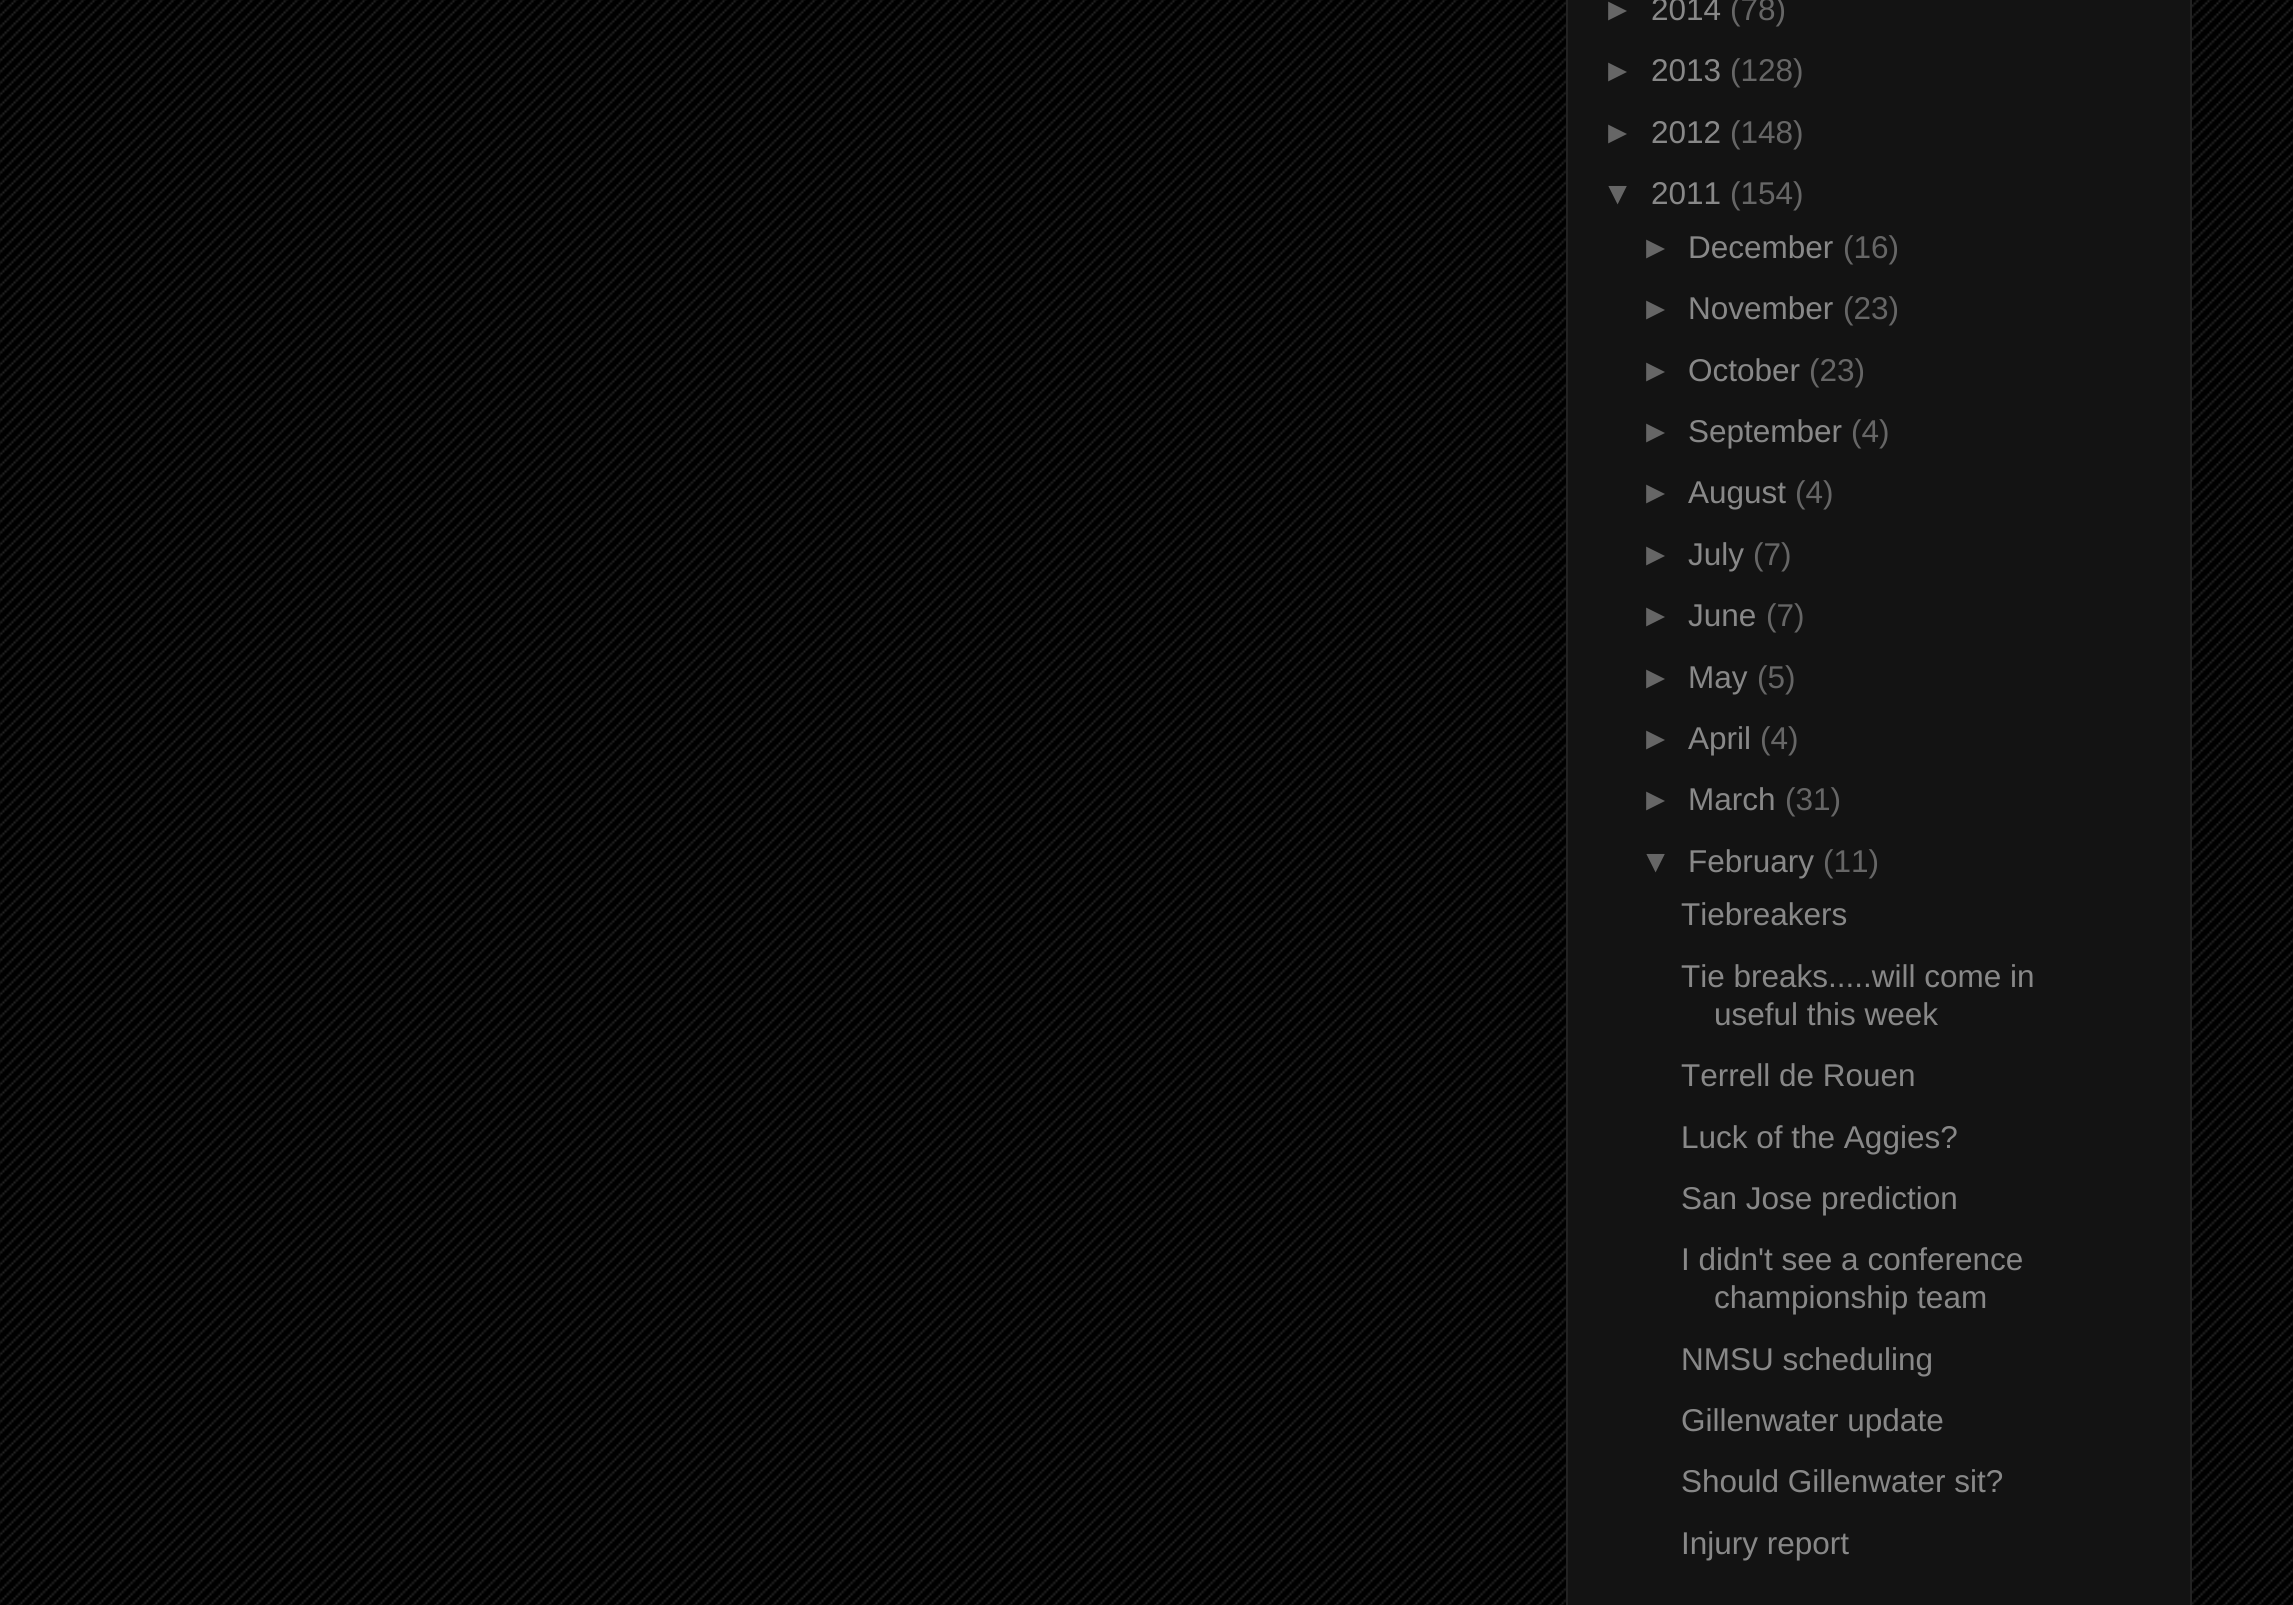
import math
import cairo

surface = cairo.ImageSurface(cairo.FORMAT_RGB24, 2293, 1605)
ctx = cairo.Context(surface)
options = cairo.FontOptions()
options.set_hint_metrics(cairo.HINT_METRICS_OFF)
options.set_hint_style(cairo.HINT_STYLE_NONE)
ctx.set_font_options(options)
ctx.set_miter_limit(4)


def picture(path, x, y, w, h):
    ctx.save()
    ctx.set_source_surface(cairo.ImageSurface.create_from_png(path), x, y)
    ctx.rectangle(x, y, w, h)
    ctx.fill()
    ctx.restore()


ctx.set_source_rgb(0, 0, 0)
ctx.paint()
picture("img1.png", 0, 0, 2293, 1605)
ctx.set_source_rgb(0.078, 0.078, 0.078)
ctx.rectangle(1567, -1, 624, 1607)
ctx.fill_preserve()
ctx.set_source_rgb(0.133, 0.133, 0.133)
ctx.stroke()
ctx.select_font_face("Liberation Sans")
ctx.set_font_size(31.5)
ctx.set_source_rgb(0.4, 0.4, 0.4)
ctx.move_to(1602, 20)
ctx.show_text("►")
ctx.set_source_rgb(0.533, 0.533, 0.533)
ctx.move_to(1651, 20)
ctx.show_text("2014")
ctx.set_source_rgb(0.4, 0.4, 0.4)
ctx.move_to(1730, 20)
ctx.show_text("(78)")
ctx.move_to(1602, 81)
ctx.show_text("►")
ctx.set_source_rgb(0.533, 0.533, 0.533)
ctx.move_to(1651, 81)
ctx.show_text("2013")
ctx.set_source_rgb(0.4, 0.4, 0.4)
ctx.move_to(1730, 81)
ctx.show_text("(128)")
ctx.move_to(1602, 143)
ctx.show_text("►")
ctx.set_source_rgb(0.533, 0.533, 0.533)
ctx.move_to(1651, 143)
ctx.show_text("2012")
ctx.set_source_rgb(0.4, 0.4, 0.4)
ctx.move_to(1730, 143)
ctx.show_text("(148)")
ctx.move_to(1602, 204)
ctx.show_text("▼")
ctx.set_source_rgb(0.533, 0.533, 0.533)
ctx.move_to(1651, 204)
ctx.show_text("2011")
ctx.set_source_rgb(0.4, 0.4, 0.4)
ctx.move_to(1730, 204)
ctx.show_text("(154)")
ctx.move_to(1640, 258)
ctx.show_text("►")
ctx.set_source_rgb(0.533, 0.533, 0.533)
ctx.move_to(1688, 258)
ctx.show_text("December")
ctx.set_source_rgb(0.4, 0.4, 0.4)
ctx.move_to(1843, 258)
ctx.show_text("(16)")
ctx.move_to(1640, 319)
ctx.show_text("►")
ctx.set_source_rgb(0.533, 0.533, 0.533)
ctx.move_to(1688, 319)
ctx.show_text("November")
ctx.set_source_rgb(0.4, 0.4, 0.4)
ctx.move_to(1843, 319)
ctx.show_text("(23)")
ctx.move_to(1640, 381)
ctx.show_text("►")
ctx.set_source_rgb(0.533, 0.533, 0.533)
ctx.move_to(1688, 381)
ctx.show_text("October")
ctx.set_source_rgb(0.4, 0.4, 0.4)
ctx.move_to(1809, 381)
ctx.show_text("(23)")
ctx.move_to(1640, 442)
ctx.show_text("►")
ctx.set_source_rgb(0.533, 0.533, 0.533)
ctx.move_to(1688, 442)
ctx.show_text("September")
ctx.set_source_rgb(0.4, 0.4, 0.4)
ctx.move_to(1851, 442)
ctx.show_text("(4)")
ctx.move_to(1640, 503)
ctx.show_text("►")
ctx.set_source_rgb(0.533, 0.533, 0.533)
ctx.move_to(1688, 503)
ctx.show_text("August")
ctx.set_source_rgb(0.4, 0.4, 0.4)
ctx.move_to(1795, 503)
ctx.show_text("(4)")
ctx.move_to(1640, 565)
ctx.show_text("►")
ctx.set_source_rgb(0.533, 0.533, 0.533)
ctx.move_to(1688, 565)
ctx.show_text("July")
ctx.set_source_rgb(0.4, 0.4, 0.4)
ctx.move_to(1753, 565)
ctx.show_text("(7)")
ctx.move_to(1640, 626)
ctx.show_text("►")
ctx.set_source_rgb(0.533, 0.533, 0.533)
ctx.move_to(1688, 626)
ctx.show_text("June")
ctx.set_source_rgb(0.4, 0.4, 0.4)
ctx.move_to(1766, 626)
ctx.show_text("(7)")
ctx.move_to(1640, 688)
ctx.show_text("►")
ctx.set_source_rgb(0.533, 0.533, 0.533)
ctx.move_to(1688, 688)
ctx.show_text("May")
ctx.set_source_rgb(0.4, 0.4, 0.4)
ctx.move_to(1757, 688)
ctx.show_text("(5)")
ctx.move_to(1640, 749)
ctx.show_text("►")
ctx.set_source_rgb(0.533, 0.533, 0.533)
ctx.move_to(1688, 749)
ctx.show_text("April")
ctx.set_source_rgb(0.4, 0.4, 0.4)
ctx.move_to(1760, 749)
ctx.show_text("(4)")
ctx.move_to(1640, 810)
ctx.show_text("►")
ctx.set_source_rgb(0.533, 0.533, 0.533)
ctx.move_to(1688, 810)
ctx.show_text("March")
ctx.set_source_rgb(0.4, 0.4, 0.4)
ctx.move_to(1785, 810)
ctx.show_text("(31)")
ctx.move_to(1640, 872)
ctx.show_text("▼")
ctx.set_source_rgb(0.533, 0.533, 0.533)
ctx.move_to(1688, 872)
ctx.show_text("February")
ctx.set_source_rgb(0.4, 0.4, 0.4)
ctx.move_to(1823, 872)
ctx.show_text("(11)")
ctx.set_source_rgb(0.533, 0.533, 0.533)
ctx.move_to(1681, 925)
ctx.show_text("Tiebreakers")
ctx.move_to(1681, 987)
ctx.show_text("Tie breaks.....will come in")
ctx.move_to(1714, 1025)
ctx.show_text("useful this week")
ctx.move_to(1681, 1086)
ctx.show_text("Terrell de Rouen")
ctx.move_to(1681, 1148)
ctx.show_text("Luck of the Aggies?")
ctx.move_to(1681, 1209)
ctx.show_text("San Jose prediction")
ctx.move_to(1681, 1270)
ctx.show_text("I didn't see a conference")
ctx.move_to(1714, 1308)
ctx.show_text("championship team")
ctx.move_to(1681, 1370)
ctx.show_text("NMSU scheduling")
ctx.move_to(1681, 1431)
ctx.show_text("Gillenwater update")
ctx.move_to(1681, 1492)
ctx.show_text("Should Gillenwater sit?")
ctx.move_to(1681, 1554)
ctx.show_text("Injury report")
surface.write_to_png("page.png")
